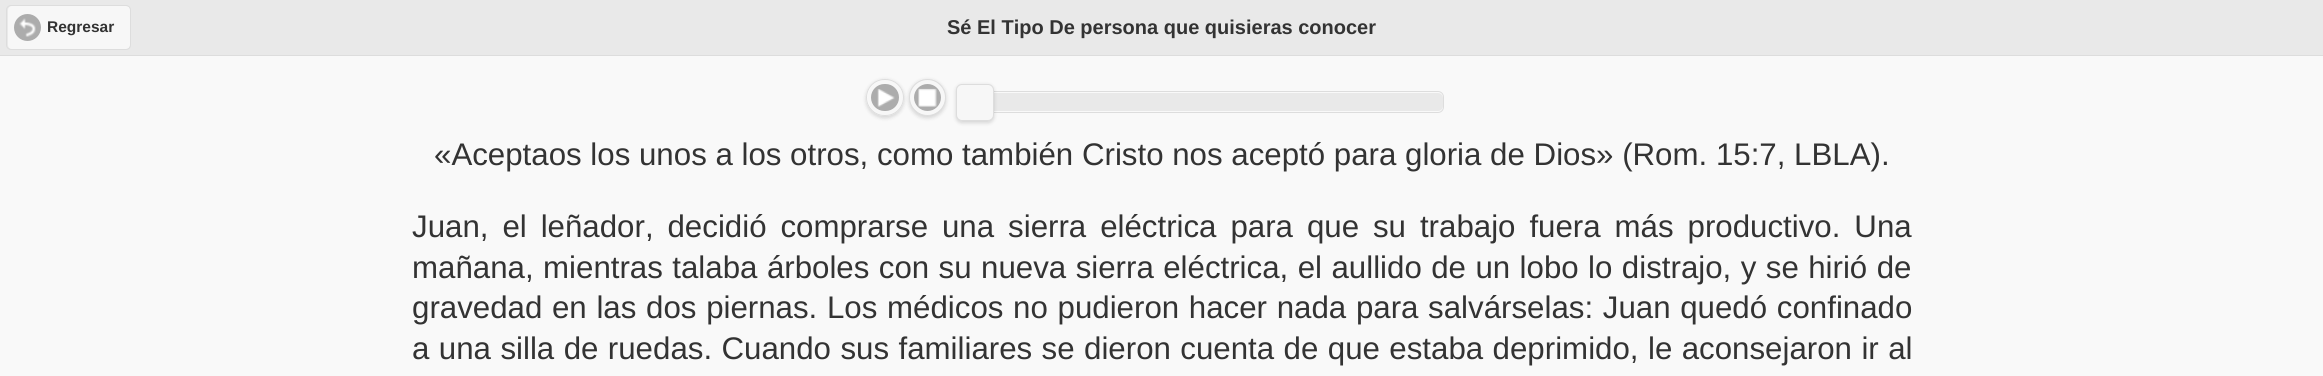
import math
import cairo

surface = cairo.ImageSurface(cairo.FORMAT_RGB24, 2323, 376)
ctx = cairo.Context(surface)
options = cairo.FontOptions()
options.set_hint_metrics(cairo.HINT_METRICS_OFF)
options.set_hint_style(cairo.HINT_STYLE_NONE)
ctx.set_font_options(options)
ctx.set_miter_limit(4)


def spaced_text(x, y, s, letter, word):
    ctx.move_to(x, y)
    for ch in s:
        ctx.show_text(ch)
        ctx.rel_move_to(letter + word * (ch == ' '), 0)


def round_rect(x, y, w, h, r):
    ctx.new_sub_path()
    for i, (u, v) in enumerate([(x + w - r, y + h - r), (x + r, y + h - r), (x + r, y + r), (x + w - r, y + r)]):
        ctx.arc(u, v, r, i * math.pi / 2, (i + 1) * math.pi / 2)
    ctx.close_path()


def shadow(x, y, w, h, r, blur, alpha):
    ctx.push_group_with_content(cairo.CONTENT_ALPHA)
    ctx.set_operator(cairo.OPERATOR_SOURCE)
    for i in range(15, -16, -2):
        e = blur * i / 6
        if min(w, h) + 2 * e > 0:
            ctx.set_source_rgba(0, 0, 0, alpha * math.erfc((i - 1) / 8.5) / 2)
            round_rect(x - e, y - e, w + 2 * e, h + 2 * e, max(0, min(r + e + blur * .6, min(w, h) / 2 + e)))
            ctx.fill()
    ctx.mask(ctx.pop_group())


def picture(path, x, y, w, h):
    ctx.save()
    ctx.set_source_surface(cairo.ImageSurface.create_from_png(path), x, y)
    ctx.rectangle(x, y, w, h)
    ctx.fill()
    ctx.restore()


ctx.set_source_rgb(0.976, 0.976, 0.976)
ctx.paint()
ctx.set_source_rgb(0.914, 0.914, 0.914)
ctx.rectangle(0, 0, 2323, 55)
ctx.fill()
ctx.set_source_rgb(0.867, 0.867, 0.867)
ctx.rectangle(0, 55, 2323, 1)
ctx.fill()
ctx.set_source_rgb(0.965, 0.965, 0.965)
round_rect(8, 6, 122, 43, 4)
ctx.fill()
round_rect(6.5, 5.5, 124, 44, 4.5)
ctx.set_source_rgb(0.867, 0.867, 0.867)
ctx.set_line_width(1)
ctx.stroke()
ctx.set_source_rgb(0.675, 0.675, 0.675)
ctx.arc(27.5, 27.5, 13.5, 0, 2 * math.pi)
ctx.fill()
picture("img1.png", 19, 18, 17, 19)
ctx.select_font_face("Liberation Sans", cairo.FONT_SLANT_NORMAL, cairo.FONT_WEIGHT_BOLD)
ctx.set_font_size(15.5)
ctx.set_source_rgb(0.2, 0.2, 0.2)
ctx.move_to(47, 32)
ctx.show_text("Regresar")
ctx.set_font_size(20)
ctx.move_to(947, 34)
ctx.show_text("Sé El Tipo De persona que quisieras conocer")
ctx.save()
ctx.set_fill_rule(cairo.FILL_RULE_EVEN_ODD)
ctx.new_path()
ctx.move_to(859, 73)
ctx.line_to(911, 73)
ctx.line_to(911, 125)
ctx.line_to(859, 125)
ctx.close_path()
ctx.move_to(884.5, 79)
ctx.line_to(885.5, 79)
ctx.curve_to(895.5, 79, 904, 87.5, 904, 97.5)
ctx.curve_to(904, 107.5, 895.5, 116, 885.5, 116)
ctx.line_to(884.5, 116)
ctx.curve_to(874.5, 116, 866, 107.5, 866, 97.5)
ctx.curve_to(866, 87.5, 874.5, 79, 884.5, 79)
ctx.close_path()
ctx.clip()
ctx.set_source_rgb(0, 0, 0)
shadow(866, 80, 38, 38, 19, 2, 0.15)
ctx.restore()
ctx.set_source_rgb(0.965, 0.965, 0.965)
ctx.arc(885.5, 97.5, 17.5, 0, 2 * math.pi)
ctx.fill()
round_rect(866.5, 79.5, 37, 36, 18)
ctx.set_source_rgb(0.867, 0.867, 0.867)
ctx.stroke()
ctx.set_source_rgb(0.675, 0.675, 0.675)
round_rect(871, 84, 28, 27, 13.5)
ctx.fill()
picture("img2.png", 877, 89, 18, 18)
ctx.set_source_rgb(0, 0, 0)
shadow(909, 80, 37, 38, 18.5, 2, 0.15)
ctx.set_source_rgb(0.965, 0.965, 0.965)
ctx.arc(927.5, 97.5, 18, 0, 2 * math.pi)
ctx.fill_preserve()
ctx.set_source_rgb(0.867, 0.867, 0.867)
ctx.stroke()
ctx.set_source_rgb(0.675, 0.675, 0.675)
ctx.arc(927.5, 97.5, 13.5, 0, 2 * math.pi)
ctx.fill()
picture("img3.png", 918, 88, 19, 19)
ctx.set_source_rgb(0.914, 0.914, 0.914)
round_rect(975, 93, 468, 18, 5)
ctx.fill()
round_rect(974.5, 91.5, 469, 21, 5.5)
ctx.set_source_rgb(0.867, 0.867, 0.867)
ctx.stroke()
ctx.set_source_rgb(0, 0, 0)
shadow(956, 85, 38, 38, 6, 2, 0.15)
ctx.set_source_rgb(0.965, 0.965, 0.965)
round_rect(956.5, 84.5, 37, 36, 5.5)
ctx.fill_preserve()
ctx.set_source_rgb(0.867, 0.867, 0.867)
ctx.stroke()
ctx.select_font_face("Liberation Sans")
ctx.set_font_size(31.25)
ctx.set_source_rgb(0.2, 0.2, 0.2)
ctx.move_to(434, 165)
ctx.show_text("«Aceptaos los unos a los otros, como también Cristo nos aceptó para gloria de Dios» (Rom. 15:7, LBLA).")
spaced_text(412, 237, "Juan, el leñador, decidió comprarse una sierra eléctrica para que su trabajo fuera más productivo. Una", 0, 5.25)
spaced_text(412, 278, "mañana, mientras talaba árboles con su nueva sierra eléctrica, el aullido de un lobo lo distrajo, y se hirió de", 0, 0.75)
spaced_text(412, 318, "gravedad en las dos piernas. Los médicos no pudieron hacer nada para salvárselas: Juan quedó confinado", 0, 1)
spaced_text(412, 359, "a una silla de ruedas. Cuando sus familiares se dieron cuenta de que estaba deprimido, le aconsejaron ir al", 0, 0.75)
surface.write_to_png("page.png")
